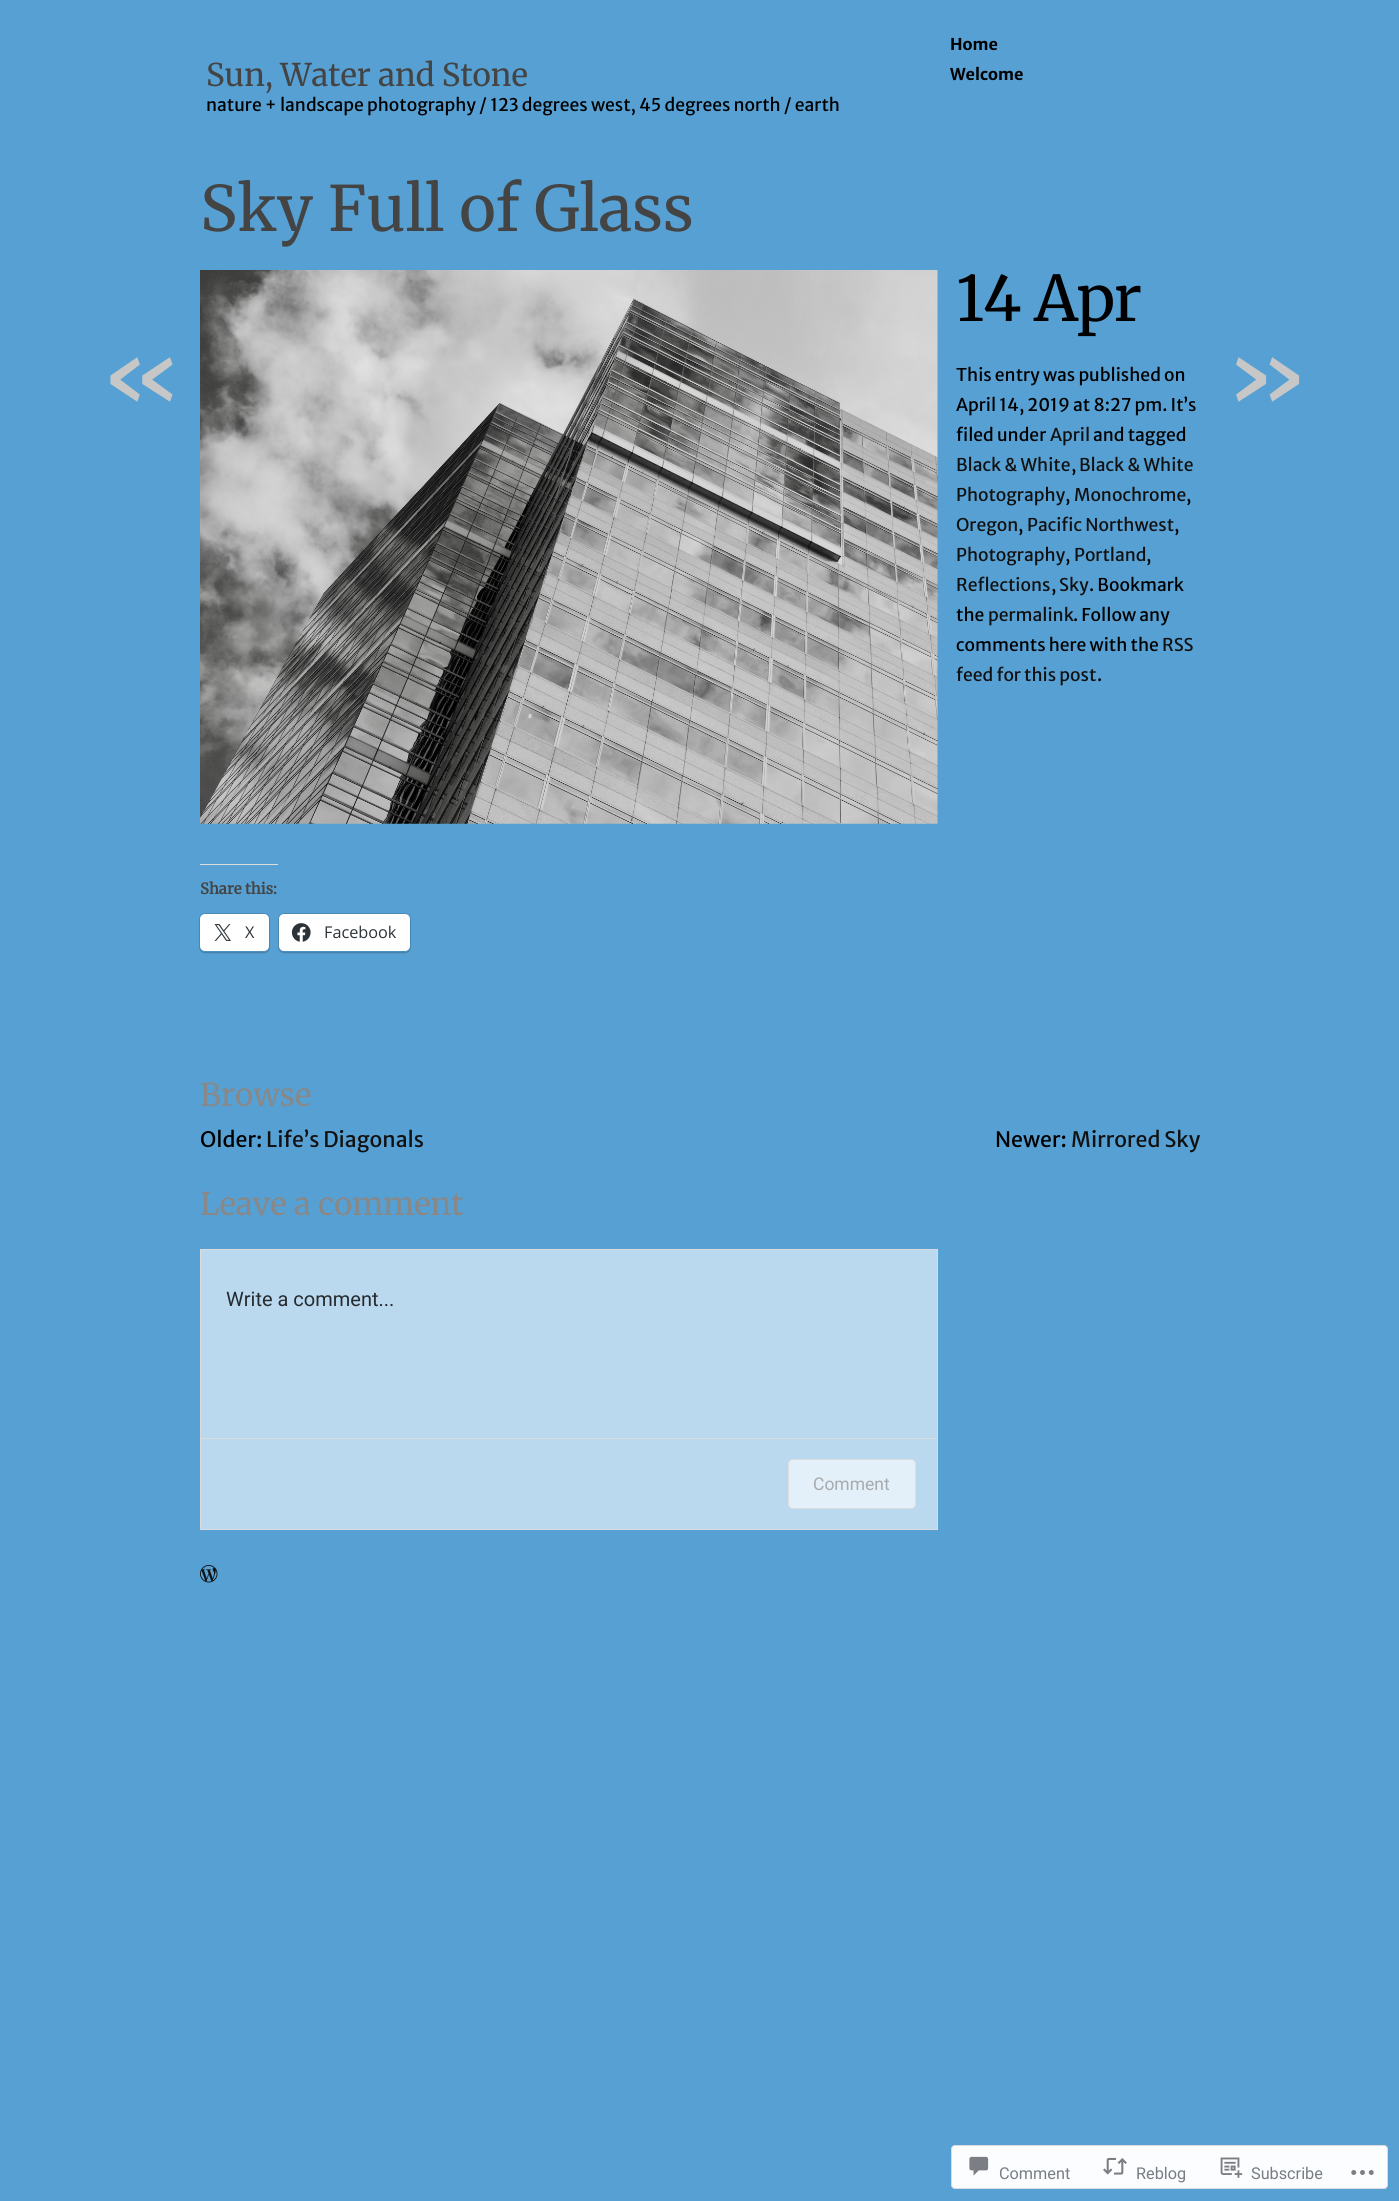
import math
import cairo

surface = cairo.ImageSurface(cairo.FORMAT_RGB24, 1399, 2201)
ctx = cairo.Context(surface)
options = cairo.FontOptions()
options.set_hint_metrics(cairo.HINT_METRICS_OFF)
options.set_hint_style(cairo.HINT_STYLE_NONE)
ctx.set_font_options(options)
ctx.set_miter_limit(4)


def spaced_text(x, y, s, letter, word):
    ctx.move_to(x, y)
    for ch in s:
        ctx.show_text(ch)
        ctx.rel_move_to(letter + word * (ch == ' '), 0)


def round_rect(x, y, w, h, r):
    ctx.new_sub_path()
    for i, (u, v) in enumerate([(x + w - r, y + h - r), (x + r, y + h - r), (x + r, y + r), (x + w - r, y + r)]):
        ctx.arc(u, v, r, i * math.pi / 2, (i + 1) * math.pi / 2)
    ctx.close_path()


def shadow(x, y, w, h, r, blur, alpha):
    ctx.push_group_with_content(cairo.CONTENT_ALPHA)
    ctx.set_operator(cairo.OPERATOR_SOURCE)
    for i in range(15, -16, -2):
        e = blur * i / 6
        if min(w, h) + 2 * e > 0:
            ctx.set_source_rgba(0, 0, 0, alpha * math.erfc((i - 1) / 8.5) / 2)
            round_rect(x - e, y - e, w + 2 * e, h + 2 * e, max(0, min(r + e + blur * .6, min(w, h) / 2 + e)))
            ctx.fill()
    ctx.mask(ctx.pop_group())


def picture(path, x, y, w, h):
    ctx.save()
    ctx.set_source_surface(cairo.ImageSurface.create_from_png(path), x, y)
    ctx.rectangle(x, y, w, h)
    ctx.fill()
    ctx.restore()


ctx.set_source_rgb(0.337, 0.627, 0.827)
ctx.paint()
ctx.select_font_face("Merriweather Light")
ctx.set_font_size(31.25)
ctx.set_source_rgb(0.267, 0.267, 0.267)
ctx.move_to(206, 86)
ctx.show_text("Sun, Water and Stone")
ctx.select_font_face("Merriweather Sans")
ctx.set_font_size(17.5)
ctx.set_source_rgb(0, 0, 0)
ctx.move_to(206, 111)
ctx.show_text("nature + landscape photography / 123 degrees west, 45 degrees north / earth")
ctx.select_font_face("Merriweather Sans", cairo.FONT_SLANT_NORMAL, cairo.FONT_WEIGHT_BOLD)
ctx.set_font_size(16.25)
ctx.move_to(950, 50)
ctx.show_text("Home")
ctx.move_to(950, 80)
ctx.show_text("Welcome")
ctx.select_font_face("Merriweather Light")
ctx.set_font_size(62.5)
ctx.set_source_rgb(0.267, 0.267, 0.267)
ctx.move_to(200, 231)
ctx.show_text("Sky Full of Glass")
ctx.set_source_rgb(0, 0, 0)
spaced_text(956, 321, "14 Apr", -1.25, 0)
ctx.select_font_face("Merriweather Sans")
ctx.set_font_size(17.5)
ctx.move_to(956, 381)
ctx.show_text("This entry was published on")
ctx.move_to(956, 411)
ctx.show_text("April 14, 2019 at 8:27 pm. It’s")
ctx.move_to(956, 441)
ctx.show_text("filed under")
ctx.set_source_rgb(0.067, 0.067, 0.067)
ctx.move_to(1050, 441)
ctx.show_text("April")
ctx.set_source_rgb(0, 0, 0)
ctx.move_to(1093, 441)
ctx.show_text("and tagged")
ctx.set_source_rgb(0.067, 0.067, 0.067)
ctx.move_to(956, 471)
ctx.show_text("Black & White")
ctx.set_source_rgb(0, 0, 0)
ctx.move_to(1071, 471)
ctx.show_text(",")
ctx.set_source_rgb(0.067, 0.067, 0.067)
ctx.move_to(1079, 471)
ctx.show_text("Black & White")
ctx.move_to(956, 501)
ctx.show_text("Photography")
ctx.set_source_rgb(0, 0, 0)
ctx.move_to(1065, 501)
ctx.show_text(",")
ctx.set_source_rgb(0.067, 0.067, 0.067)
ctx.move_to(1074, 501)
ctx.show_text("Monochrome")
ctx.set_source_rgb(0, 0, 0)
ctx.move_to(1186, 501)
ctx.show_text(",")
ctx.set_source_rgb(0.067, 0.067, 0.067)
ctx.move_to(956, 531)
ctx.show_text("Oregon")
ctx.set_source_rgb(0, 0, 0)
ctx.move_to(1018, 531)
ctx.show_text(",")
ctx.set_source_rgb(0.067, 0.067, 0.067)
ctx.move_to(1027, 531)
ctx.show_text("Pacific Northwest")
ctx.set_source_rgb(0, 0, 0)
ctx.move_to(1174, 531)
ctx.show_text(",")
ctx.set_source_rgb(0.067, 0.067, 0.067)
ctx.move_to(956, 561)
ctx.show_text("Photography")
ctx.set_source_rgb(0, 0, 0)
ctx.move_to(1065, 561)
ctx.show_text(",")
ctx.set_source_rgb(0.067, 0.067, 0.067)
ctx.move_to(1074, 561)
ctx.show_text("Portland")
ctx.set_source_rgb(0, 0, 0)
ctx.move_to(1146, 561)
ctx.show_text(",")
ctx.set_source_rgb(0.067, 0.067, 0.067)
ctx.move_to(956, 591)
ctx.show_text("Reflections")
ctx.set_source_rgb(0, 0, 0)
ctx.move_to(1051, 591)
ctx.show_text(",")
ctx.set_source_rgb(0.067, 0.067, 0.067)
ctx.move_to(1059, 591)
ctx.show_text("Sky")
ctx.set_source_rgb(0, 0, 0)
ctx.move_to(1089, 591)
ctx.show_text(". Bookmark")
ctx.move_to(956, 621)
ctx.show_text("the")
ctx.set_source_rgb(0.067, 0.067, 0.067)
ctx.move_to(988, 621)
ctx.show_text("permalink")
ctx.set_source_rgb(0, 0, 0)
ctx.move_to(1073, 621)
ctx.show_text(". Follow any")
ctx.move_to(956, 651)
ctx.show_text("comments here with the")
ctx.set_source_rgb(0.067, 0.067, 0.067)
ctx.move_to(1162, 651)
ctx.show_text("RSS")
ctx.move_to(956, 681)
ctx.show_text("feed for this post")
ctx.set_source_rgb(0, 0, 0)
ctx.move_to(1097, 681)
ctx.show_text(".")
picture("img1.png", 200, 270, 738, 554)
ctx.set_source_rgb(0.863, 0.863, 0.871)
ctx.rectangle(200, 864, 78, 1)
ctx.fill()
ctx.select_font_face("Merriweather", cairo.FONT_SLANT_NORMAL, cairo.FONT_WEIGHT_BOLD)
ctx.set_font_size(15)
ctx.set_source_rgb(0.267, 0.267, 0.267)
ctx.move_to(200, 894)
ctx.show_text("Share this:")
round_rect(199.5, 913.5, 70, 39, 5.5)
ctx.set_source_rgb(0.298, 0.553, 0.729)
ctx.set_line_width(1)
ctx.stroke()
ctx.set_source_rgb(0, 0, 0)
shadow(200, 915, 69, 38, 5, 1, 0.12)
ctx.set_source_rgb(1, 1, 1)
round_rect(200, 914, 69, 37, 5)
ctx.fill()
picture("img2.png", 214, 924, 17, 17)
ctx.select_font_face("Open Sans")
ctx.set_font_size(16.25)
ctx.set_source_rgb(0.173, 0.2, 0.22)
ctx.move_to(245, 938)
ctx.show_text("X")
round_rect(278.5, 913.5, 132, 39, 5.5)
ctx.set_source_rgb(0.298, 0.553, 0.729)
ctx.stroke()
ctx.set_source_rgb(0, 0, 0)
shadow(279, 915, 131, 38, 5, 1, 0.12)
ctx.set_source_rgb(1, 1, 1)
round_rect(279, 914, 131, 37, 5)
ctx.fill()
picture("img3.png", 291, 923, 20, 19)
ctx.set_source_rgb(0.173, 0.2, 0.22)
ctx.move_to(324, 938)
ctx.show_text("Facebook")
ctx.select_font_face("Merriweather Sans")
ctx.set_font_size(88)
ctx.set_source_rgb(0.78, 0.78, 0.78)
ctx.move_to(100, 406)
ctx.show_text("«")
ctx.move_to(1225, 406)
ctx.show_text("»")
ctx.select_font_face("Merriweather Light")
ctx.set_font_size(31.25)
ctx.set_source_rgb(0.533, 0.533, 0.533)
ctx.move_to(200, 1106)
ctx.show_text("Browse")
ctx.select_font_face("Merriweather Sans")
ctx.set_font_size(21.25)
ctx.set_source_rgb(0, 0, 0)
ctx.move_to(200, 1147)
ctx.show_text("Older:")
ctx.set_source_rgb(0.067, 0.067, 0.067)
ctx.move_to(266, 1147)
ctx.show_text("Life’s Diagonals")
ctx.set_source_rgb(0, 0, 0)
ctx.move_to(995, 1147)
ctx.show_text("Newer:")
ctx.set_source_rgb(0.067, 0.067, 0.067)
ctx.move_to(1071, 1147)
ctx.show_text("Mirrored Sky")
ctx.select_font_face("Merriweather Light")
ctx.set_font_size(31.25)
ctx.set_source_rgb(0.533, 0.533, 0.533)
ctx.move_to(200, 1215)
ctx.show_text("Leave a comment")
ctx.set_source_rgb(0.733, 0.851, 0.933)
ctx.rectangle(200.5, 1249.5, 737, 280)
ctx.fill_preserve()
ctx.set_source_rgb(0.863, 0.863, 0.871)
ctx.stroke()
ctx.select_font_face("Roboto")
ctx.set_font_size(20)
ctx.set_source_rgb(0.145, 0.169, 0.188)
ctx.move_to(226, 1306)
ctx.show_text("Write a comment...")
ctx.set_source_rgb(0.863, 0.863, 0.871)
ctx.rectangle(201, 1438, 735, 1)
ctx.fill()
ctx.set_source_rgb(0.894, 0.941, 0.973)
round_rect(788.5, 1459.5, 127, 49, 4.5)
ctx.fill_preserve()
ctx.set_source_rgb(0.863, 0.863, 0.871)
ctx.stroke()
ctx.set_font_size(17.5)
ctx.set_source_rgb(0.655, 0.667, 0.678)
ctx.move_to(813, 1490)
ctx.show_text("Comment")
picture("img4.png", 200, 1565, 18, 18)
ctx.set_source_rgb(0.988, 0.992, 0.996)
round_rect(951.5, 2145.5, 436, 43, 3.5)
ctx.fill_preserve()
ctx.set_source_rgb(0.851, 0.859, 0.871)
ctx.stroke()
picture("img5.png", 969, 2156, 20, 20)
ctx.set_font_size(16.25)
ctx.set_source_rgb(0.467, 0.49, 0.518)
ctx.move_to(999, 2179)
ctx.show_text("Comment")
picture("img6.png", 1103, 2157, 24, 18)
ctx.move_to(1136, 2179)
ctx.show_text("Reblog")
picture("img7.png", 1220, 2157, 23, 21)
ctx.move_to(1251, 2179)
ctx.show_text("Subscribe")
picture("img8.png", 1351, 2170, 23, 5)
surface.write_to_png("page.png")
